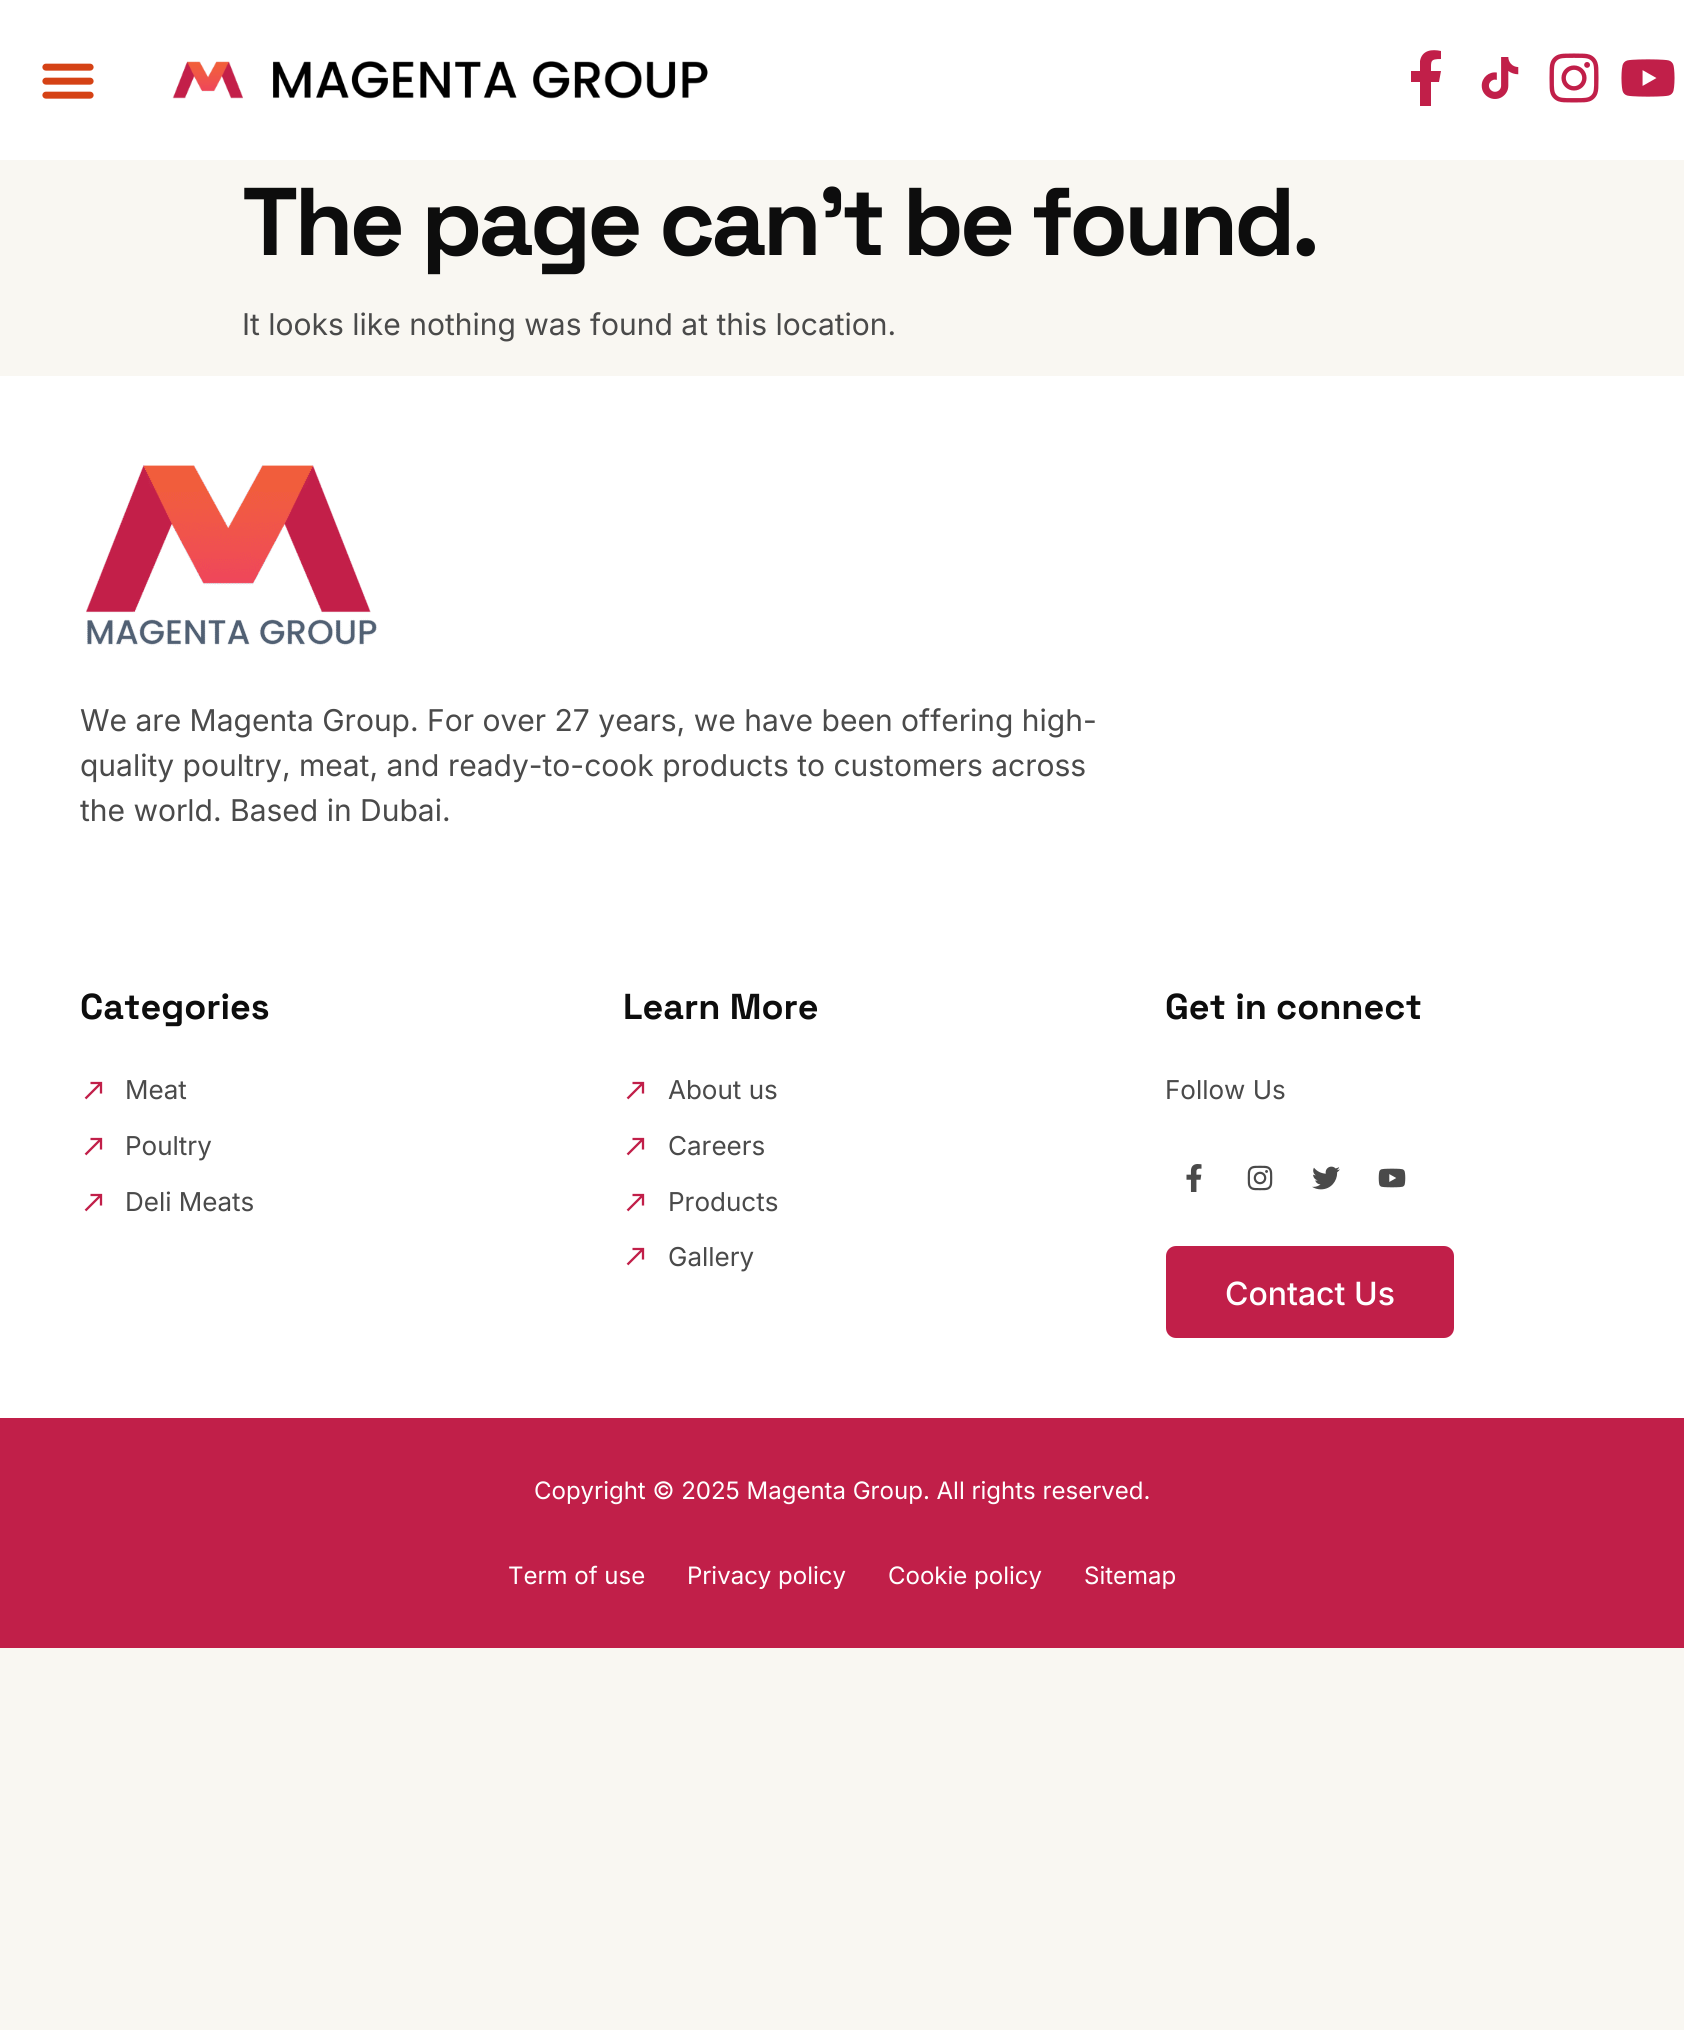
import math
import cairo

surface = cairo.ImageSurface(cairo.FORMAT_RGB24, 1684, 2030)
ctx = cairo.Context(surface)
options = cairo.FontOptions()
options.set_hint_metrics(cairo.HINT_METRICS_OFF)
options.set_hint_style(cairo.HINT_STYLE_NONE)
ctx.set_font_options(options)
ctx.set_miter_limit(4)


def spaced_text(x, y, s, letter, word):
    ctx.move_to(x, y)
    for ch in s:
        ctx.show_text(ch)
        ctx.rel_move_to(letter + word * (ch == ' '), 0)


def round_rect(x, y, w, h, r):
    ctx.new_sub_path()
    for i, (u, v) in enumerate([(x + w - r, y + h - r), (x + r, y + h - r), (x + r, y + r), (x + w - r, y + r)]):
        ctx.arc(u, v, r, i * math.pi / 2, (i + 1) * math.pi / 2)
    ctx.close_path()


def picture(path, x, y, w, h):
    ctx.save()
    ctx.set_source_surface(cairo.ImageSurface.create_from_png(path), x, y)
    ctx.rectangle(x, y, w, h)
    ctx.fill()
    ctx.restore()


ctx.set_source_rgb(0.973, 0.965, 0.949)
ctx.paint()
ctx.set_source_rgb(1, 1, 1)
ctx.rectangle(0, 0, 1684, 160)
ctx.fill()
picture("img1.png", 42, 63, 52, 36)
picture("img2.png", 172, 61, 536, 38)
ctx.set_source_rgb(0.757, 0.122, 0.286)
ctx.new_path()
ctx.move_to(1439, 82)
ctx.line_to(1441, 71)
ctx.line_to(1431, 71)
ctx.curve_to(1431, 61, 1430, 59, 1441, 59)
ctx.line_to(1441, 51)
ctx.curve_to(1432, 49, 1422, 50, 1420, 61)
ctx.line_to(1420, 71)
ctx.line_to(1411, 71)
ctx.line_to(1411, 82)
ctx.line_to(1420, 82)
ctx.line_to(1420, 106)
ctx.line_to(1431, 106)
ctx.line_to(1431, 82)
ctx.close_path()
ctx.fill()
picture("img3.png", 1481, 57, 38, 42)
picture("img4.png", 1549, 53, 50, 50)
picture("img5.png", 1621, 59, 54, 38)
ctx.select_font_face("Space Grotesk", cairo.FONT_SLANT_NORMAL, cairo.FONT_WEIGHT_BOLD)
ctx.set_font_size(96)
ctx.set_source_rgb(0.051, 0.051, 0.051)
spaced_text(242, 255, "The page can’t be found.", -4, 0)
ctx.select_font_face("Inter")
ctx.set_font_size(30)
ctx.set_source_rgb(0.29, 0.29, 0.29)
ctx.move_to(242, 335)
ctx.show_text("It looks like nothing was found at this location.")
ctx.set_source_rgb(1, 1, 1)
ctx.rectangle(0, 376, 1684, 1042)
ctx.fill()
picture("img6.png", 86, 465, 292, 182)
ctx.set_source_rgb(0.29, 0.29, 0.29)
ctx.move_to(80, 731)
ctx.show_text("We are Magenta Group. For over 27 years, we have been offering high-")
ctx.move_to(80, 776)
ctx.show_text("quality poultry, meat, and ready-to-cook products to customers across")
ctx.move_to(80, 821)
ctx.show_text("the world. Based in Dubai.")
ctx.select_font_face("Space Grotesk", cairo.FONT_SLANT_NORMAL, cairo.FONT_WEIGHT_BOLD)
ctx.set_font_size(36)
ctx.set_source_rgb(0.051, 0.051, 0.051)
ctx.move_to(80, 1019)
ctx.show_text("Categories")
picture("img7.png", 84, 1081, 19, 19)
ctx.select_font_face("Inter")
ctx.set_font_size(26)
ctx.set_source_rgb(0.29, 0.29, 0.29)
ctx.move_to(125, 1099)
ctx.show_text("Meat")
picture("img7.png", 84, 1137, 19, 19)
ctx.move_to(125, 1155)
ctx.show_text("Poultry")
picture("img7.png", 84, 1193, 19, 19)
ctx.move_to(125, 1211)
ctx.show_text("Deli Meats")
ctx.select_font_face("Space Grotesk", cairo.FONT_SLANT_NORMAL, cairo.FONT_WEIGHT_BOLD)
ctx.set_font_size(36)
ctx.set_source_rgb(0.051, 0.051, 0.051)
ctx.move_to(623, 1019)
ctx.show_text("Learn More")
picture("img7.png", 626, 1081, 19, 19)
ctx.select_font_face("Inter")
ctx.set_font_size(26)
ctx.set_source_rgb(0.29, 0.29, 0.29)
ctx.move_to(668, 1099)
ctx.show_text("About us")
picture("img7.png", 626, 1137, 19, 19)
ctx.move_to(668, 1155)
ctx.show_text("Careers")
picture("img7.png", 626, 1193, 19, 19)
ctx.move_to(668, 1211)
ctx.show_text("Products")
picture("img7.png", 626, 1247, 19, 19)
ctx.move_to(668, 1266)
ctx.show_text("Gallery")
ctx.select_font_face("Space Grotesk", cairo.FONT_SLANT_NORMAL, cairo.FONT_WEIGHT_BOLD)
ctx.set_font_size(36)
ctx.set_source_rgb(0.051, 0.051, 0.051)
ctx.move_to(1165, 1019)
ctx.show_text("Get in connect")
ctx.select_font_face("Inter")
ctx.set_font_size(26)
ctx.set_source_rgb(0.29, 0.29, 0.29)
ctx.move_to(1165, 1099)
ctx.show_text("Follow Us")
picture("img8.png", 1186, 1164, 16, 28)
picture("img9.png", 1247, 1165, 26, 26)
picture("img10.png", 1312, 1166, 28, 24)
picture("img11.png", 1378, 1168, 28, 20)
ctx.set_source_rgb(0.757, 0.122, 0.286)
round_rect(1166, 1246, 288, 92, 10)
ctx.fill()
ctx.select_font_face("Inter Medium")
ctx.set_font_size(32)
ctx.set_source_rgb(1, 1, 1)
ctx.move_to(1225, 1305)
ctx.show_text("Contact Us")
ctx.set_source_rgb(0.757, 0.122, 0.286)
ctx.rectangle(0, 1418, 1684, 230)
ctx.fill()
ctx.select_font_face("Inter")
ctx.set_font_size(24)
ctx.set_source_rgb(1, 1, 1)
ctx.move_to(534, 1499)
ctx.show_text("Copyright © 2025 Magenta Group. All rights reserved.")
ctx.move_to(508, 1584)
ctx.show_text("Term of use")
ctx.move_to(687, 1584)
ctx.show_text("Privacy policy")
ctx.move_to(888, 1584)
ctx.show_text("Cookie policy")
ctx.move_to(1084, 1584)
ctx.show_text("Sitemap")
surface.write_to_png("page.png")
